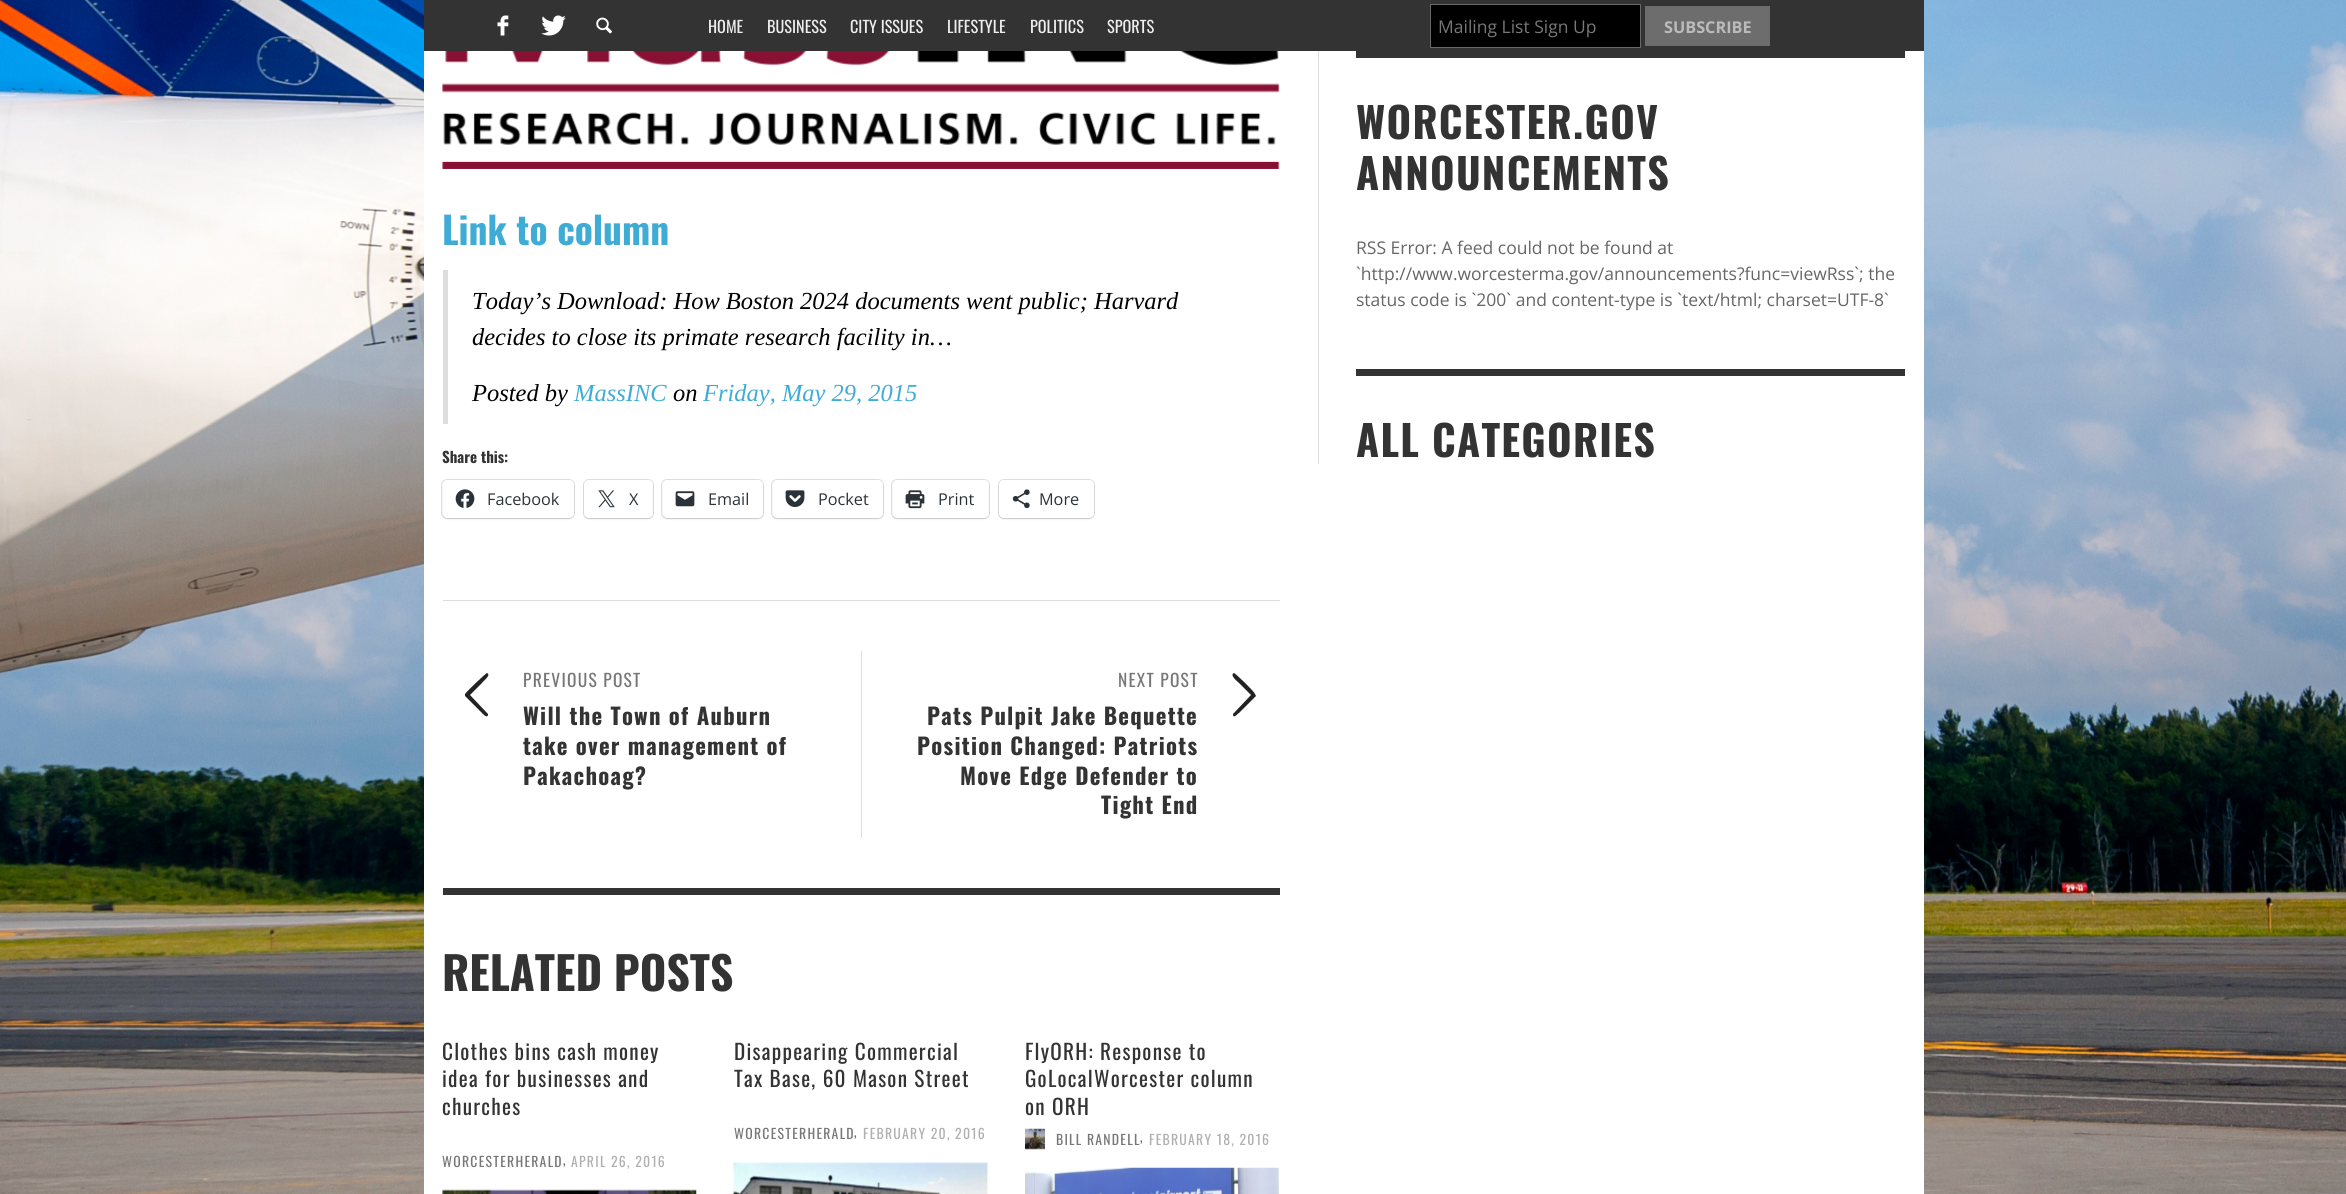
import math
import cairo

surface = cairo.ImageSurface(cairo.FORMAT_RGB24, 2346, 1194)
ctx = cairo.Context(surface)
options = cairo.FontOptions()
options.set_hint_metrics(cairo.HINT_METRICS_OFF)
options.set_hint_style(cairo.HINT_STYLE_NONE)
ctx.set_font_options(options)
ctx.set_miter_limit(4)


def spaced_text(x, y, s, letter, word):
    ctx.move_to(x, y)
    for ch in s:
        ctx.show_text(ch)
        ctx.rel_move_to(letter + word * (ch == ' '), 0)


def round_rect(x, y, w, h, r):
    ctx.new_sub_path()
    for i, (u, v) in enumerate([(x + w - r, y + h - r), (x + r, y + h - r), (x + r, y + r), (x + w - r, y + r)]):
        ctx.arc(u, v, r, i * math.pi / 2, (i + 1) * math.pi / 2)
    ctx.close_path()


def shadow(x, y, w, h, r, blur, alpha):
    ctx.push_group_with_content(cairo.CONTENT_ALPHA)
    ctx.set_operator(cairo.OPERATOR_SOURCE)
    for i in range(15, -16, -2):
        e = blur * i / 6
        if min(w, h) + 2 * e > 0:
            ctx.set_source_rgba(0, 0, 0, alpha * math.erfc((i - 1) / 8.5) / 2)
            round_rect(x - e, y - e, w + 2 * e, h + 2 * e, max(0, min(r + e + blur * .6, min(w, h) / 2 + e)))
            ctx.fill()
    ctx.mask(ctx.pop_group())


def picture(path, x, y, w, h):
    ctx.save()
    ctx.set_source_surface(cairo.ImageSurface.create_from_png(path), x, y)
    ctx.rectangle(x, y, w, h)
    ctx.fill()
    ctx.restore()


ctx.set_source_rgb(1, 1, 1)
ctx.paint()
picture("img1.png", 0, 0, 2346, 1194)
ctx.set_source_rgb(1, 1, 1)
ctx.rectangle(424, 51, 1500, 1143)
ctx.fill()
ctx.set_source_rgb(0.2, 0.2, 0.2)
ctx.rectangle(424, 0, 1500, 51)
ctx.fill()
picture("img2.png", 497, 15, 12, 21)
picture("img3.png", 541, 15, 25, 21)
picture("img4.png", 596, 17, 16, 17)
ctx.select_font_face("Oswald")
ctx.set_font_size(16.25)
ctx.set_source_rgb(0.933, 0.933, 0.933)
ctx.move_to(708, 33)
ctx.show_text("HOME")
ctx.move_to(767, 33)
ctx.show_text("BUSINESS")
ctx.move_to(850, 33)
ctx.show_text("CITY ISSUES")
ctx.move_to(947, 33)
ctx.show_text("LIFESTYLE")
ctx.move_to(1030, 33)
ctx.show_text("POLITICS")
ctx.move_to(1107, 33)
ctx.show_text("SPORTS")
ctx.set_source_rgb(0, 0, 0)
ctx.rectangle(1430.5, 4.5, 210, 43)
ctx.fill_preserve()
ctx.set_source_rgb(0.408, 0.408, 0.408)
ctx.set_line_width(1)
ctx.stroke()
ctx.select_font_face("Open Sans")
ctx.set_font_size(17.5)
ctx.set_source_rgb(0.467, 0.467, 0.467)
ctx.move_to(1438, 33)
ctx.show_text("Mailing List Sign Up")
ctx.set_source_rgb(0.427, 0.427, 0.427)
ctx.rectangle(1645, 6, 125, 40)
ctx.fill()
ctx.select_font_face("Open Sans", cairo.FONT_SLANT_NORMAL, cairo.FONT_WEIGHT_BOLD)
ctx.set_font_size(16.25)
ctx.set_source_rgb(0.733, 0.733, 0.733)
ctx.move_to(1664, 33)
ctx.show_text("SUBSCRIBE")
picture("img5.png", 442, 51, 838, 118)
ctx.select_font_face("Oswald", cairo.FONT_SLANT_NORMAL, cairo.FONT_WEIGHT_BOLD)
ctx.set_font_size(37.5)
ctx.set_source_rgb(0.247, 0.675, 0.839)
ctx.move_to(442, 245)
ctx.show_text("Link to column")
ctx.set_source_rgb(0.867, 0.867, 0.867)
ctx.rectangle(443, 270, 5, 154)
ctx.fill()
ctx.select_font_face("Liberation Serif", cairo.FONT_SLANT_ITALIC)
ctx.set_font_size(24.5)
ctx.set_source_rgb(0, 0, 0)
ctx.move_to(472, 309)
ctx.show_text("Today’s Download: How Boston 2024 documents went public; Harvard")
ctx.move_to(472, 345)
ctx.show_text("decides to close its primate research facility in…")
ctx.move_to(472, 401)
ctx.show_text("Posted by")
ctx.set_source_rgb(0.247, 0.675, 0.839)
ctx.move_to(574, 401)
ctx.show_text("MassINC")
ctx.set_source_rgb(0, 0, 0)
ctx.move_to(673, 401)
ctx.show_text("on")
ctx.set_source_rgb(0.247, 0.675, 0.839)
ctx.move_to(703, 401)
ctx.show_text("Friday, May 29, 2015")
ctx.select_font_face("Oswald", cairo.FONT_SLANT_NORMAL, cairo.FONT_WEIGHT_BOLD)
ctx.set_font_size(15)
ctx.set_source_rgb(0.2, 0.2, 0.2)
ctx.move_to(442, 463)
ctx.show_text("Share this:")
round_rect(441.5, 479.5, 133, 39, 5.5)
ctx.set_source_rgb(0.878, 0.878, 0.878)
ctx.stroke()
ctx.set_source_rgb(0, 0, 0)
shadow(443, 481, 131, 38, 5, 1, 0.12)
ctx.set_source_rgb(1, 1, 1)
round_rect(443, 480, 131, 38, 5)
ctx.fill()
picture("img6.png", 455, 489, 20, 19)
ctx.select_font_face("Open Sans")
ctx.set_font_size(16.25)
ctx.set_source_rgb(0.173, 0.2, 0.22)
ctx.move_to(487, 505)
ctx.show_text("Facebook")
round_rect(583.5, 479.5, 70, 39, 5.5)
ctx.set_source_rgb(0.878, 0.878, 0.878)
ctx.stroke()
ctx.set_source_rgb(0, 0, 0)
shadow(584, 481, 69, 38, 5, 1, 0.12)
ctx.set_source_rgb(1, 1, 1)
round_rect(584, 480, 69, 38, 5)
ctx.fill()
picture("img7.png", 598, 490, 17, 18)
ctx.set_source_rgb(0.173, 0.2, 0.22)
ctx.move_to(629, 505)
ctx.show_text("X")
round_rect(661.5, 479.5, 102, 39, 5.5)
ctx.set_source_rgb(0.878, 0.878, 0.878)
ctx.stroke()
ctx.set_source_rgb(0, 0, 0)
shadow(663, 481, 100, 38, 5, 1, 0.12)
ctx.set_source_rgb(1, 1, 1)
round_rect(663, 480, 100, 38, 5)
ctx.fill()
picture("img8.png", 675, 491, 20, 16)
ctx.set_source_rgb(0.173, 0.2, 0.22)
ctx.move_to(708, 505)
ctx.show_text("Email")
round_rect(771.5, 479.5, 112, 39, 5.5)
ctx.set_source_rgb(0.878, 0.878, 0.878)
ctx.stroke()
ctx.set_source_rgb(0, 0, 0)
shadow(773, 481, 110, 38, 5, 1, 0.12)
ctx.set_source_rgb(1, 1, 1)
round_rect(773, 480, 110, 38, 5)
ctx.fill()
picture("img9.png", 785, 490, 20, 17)
ctx.set_source_rgb(0.173, 0.2, 0.22)
ctx.move_to(818, 505)
ctx.show_text("Pocket")
round_rect(891.5, 479.5, 98, 39, 5.5)
ctx.set_source_rgb(0.878, 0.878, 0.878)
ctx.stroke()
ctx.set_source_rgb(0, 0, 0)
shadow(893, 481, 96, 38, 5, 1, 0.12)
ctx.set_source_rgb(1, 1, 1)
round_rect(893, 480, 96, 38, 5)
ctx.fill()
picture("img10.png", 905, 490, 20, 19)
ctx.set_source_rgb(0.173, 0.2, 0.22)
ctx.move_to(938, 505)
ctx.show_text("Print")
round_rect(998.5, 479.5, 96, 39, 5.5)
ctx.set_source_rgb(0.878, 0.878, 0.878)
ctx.stroke()
ctx.set_source_rgb(0, 0, 0)
shadow(999, 481, 95, 38, 5, 1, 0.12)
ctx.set_source_rgb(1, 1, 1)
round_rect(999, 480, 95, 38, 5)
ctx.fill()
picture("img11.png", 1012, 489, 18, 20)
ctx.set_source_rgb(0.173, 0.2, 0.22)
ctx.move_to(1039, 505)
ctx.show_text("More")
ctx.set_source_rgb(0.867, 0.867, 0.867)
ctx.rectangle(443, 600, 837, 1)
ctx.fill()
ctx.set_source_rgb(0.133, 0.133, 0.133)
ctx.new_path()
ctx.move_to(488, 714)
ctx.line_to(488, 715)
ctx.curve_to(487, 719, 482, 713, 482, 713)
ctx.line_to(465, 696)
ctx.line_to(465, 694)
ctx.curve_to(467, 691, 486, 673, 487, 673)
ctx.curve_to(492, 675, 482, 682, 482, 683)
ctx.line_to(470, 695)
ctx.close_path()
ctx.fill()
ctx.select_font_face("Oswald")
ctx.set_font_size(17.5)
ctx.set_source_rgb(0.467, 0.467, 0.467)
spaced_text(523, 687, "PREVIOUS POST", 1.25, 0)
ctx.select_font_face("Oswald", cairo.FONT_SLANT_NORMAL, cairo.FONT_WEIGHT_BOLD)
ctx.set_font_size(22.75)
ctx.set_source_rgb(0.2, 0.2, 0.2)
spaced_text(523, 725, "Will the Town of Auburn", 1.25, 0)
spaced_text(523, 755, "take over management of", 1.25, 0)
spaced_text(523, 785, "Pakachoag?", 1.25, 0)
ctx.set_source_rgb(0.867, 0.867, 0.867)
ctx.rectangle(861, 651, 1, 187)
ctx.fill()
ctx.select_font_face("Oswald")
ctx.set_font_size(17.5)
ctx.set_source_rgb(0.467, 0.467, 0.467)
spaced_text(1118, 687, "NEXT POST", 1.25, 0)
ctx.select_font_face("Oswald", cairo.FONT_SLANT_NORMAL, cairo.FONT_WEIGHT_BOLD)
ctx.set_font_size(22.75)
ctx.set_source_rgb(0.2, 0.2, 0.2)
spaced_text(927, 725, "Pats Pulpit Jake Bequette", 1.25, 0)
spaced_text(917, 755, "Position Changed: Patriots", 1.25, 0)
spaced_text(960, 785, "Move Edge Defender to", 1.25, 0)
spaced_text(1101, 814, "Tight End", 1.25, 0)
ctx.set_source_rgb(0.133, 0.133, 0.133)
ctx.new_path()
ctx.move_to(1233, 714)
ctx.line_to(1251, 695)
ctx.line_to(1239, 683)
ctx.curve_to(1238, 682, 1229, 675, 1234, 673)
ctx.curve_to(1235, 673, 1254, 691, 1255, 694)
ctx.line_to(1256, 696)
ctx.line_to(1239, 713)
ctx.curve_to(1238, 713, 1234, 719, 1233, 715)
ctx.close_path()
ctx.fill()
ctx.set_source_rgb(0.2, 0.2, 0.2)
ctx.rectangle(443, 888, 837, 7)
ctx.fill()
ctx.set_font_size(45.5)
ctx.move_to(442, 991)
ctx.show_text("RELATED POSTS")
ctx.select_font_face("Oswald")
ctx.set_font_size(21.25)
spaced_text(442, 1060, "Clothes bins cash money", 1.25, 0)
spaced_text(442, 1087, "idea for businesses and", 1.25, 0)
spaced_text(442, 1115, "churches", 1.25, 0)
ctx.set_font_size(13.75)
ctx.set_source_rgb(0.467, 0.467, 0.467)
spaced_text(442, 1167, "WORCESTERHERALD", 1.25, 0)
ctx.set_source_rgb(0.4, 0.4, 0.4)
spaced_text(563, 1165, ",", 1.25, 0)
ctx.set_source_rgb(0.69, 0.69, 0.69)
spaced_text(571, 1167, "APRIL 26, 2016", 1.25, 0)
picture("img12.png", 442, 1189, 255, 5)
ctx.set_font_size(21.25)
ctx.set_source_rgb(0.2, 0.2, 0.2)
spaced_text(734, 1060, "Disappearing Commercial", 1.25, 0)
spaced_text(734, 1087, "Tax Base, 60 Mason Street", 1.25, 0)
ctx.set_font_size(13.75)
ctx.set_source_rgb(0.467, 0.467, 0.467)
spaced_text(734, 1139, "WORCESTERHERALD", 1.25, 0)
ctx.set_source_rgb(0.4, 0.4, 0.4)
spaced_text(854, 1137, ",", 1.25, 0)
ctx.set_source_rgb(0.69, 0.69, 0.69)
spaced_text(863, 1139, "FEBRUARY 20, 2016", 1.25, 0)
picture("img13.png", 733, 1162, 256, 32)
ctx.set_font_size(21.25)
ctx.set_source_rgb(0.2, 0.2, 0.2)
spaced_text(1025, 1060, "FlyORH: Response to", 1.25, 0)
spaced_text(1025, 1087, "GoLocalWorcester column", 1.25, 0)
spaced_text(1025, 1115, "on ORH", 1.25, 0)
picture("img14.png", 1025, 1128, 20, 22)
ctx.set_font_size(13.75)
ctx.set_source_rgb(0.467, 0.467, 0.467)
spaced_text(1056, 1145, "BILL RANDELL", 1.25, 0)
ctx.set_source_rgb(0.4, 0.4, 0.4)
spaced_text(1140, 1142, ",", 1.25, 0)
ctx.set_source_rgb(0.69, 0.69, 0.69)
spaced_text(1149, 1145, "FEBRUARY 18, 2016", 1.25, 0)
picture("img15.png", 1025, 1167, 254, 27)
ctx.set_source_rgb(0.867, 0.867, 0.867)
ctx.rectangle(1318, 51, 1, 413)
ctx.fill()
ctx.set_source_rgb(0.2, 0.2, 0.2)
ctx.rectangle(1356, 51, 549, 7)
ctx.fill()
ctx.select_font_face("Oswald", cairo.FONT_SLANT_NORMAL, cairo.FONT_WEIGHT_BOLD)
ctx.set_font_size(42)
spaced_text(1356, 139, "WORCESTER.GOV", 1.25, 0)
spaced_text(1356, 190, "ANNOUNCEMENTS", 1.25, 0)
ctx.select_font_face("Open Sans")
ctx.set_font_size(17.5)
ctx.set_source_rgb(0.4, 0.4, 0.4)
ctx.move_to(1356, 254)
ctx.show_text("RSS Error: A feed could not be found at")
ctx.move_to(1356, 280)
ctx.show_text("`http://www.worcesterma.gov/announcements?func=viewRss`; the")
ctx.move_to(1356, 306)
ctx.show_text("status code is `200` and content-type is `text/html; charset=UTF-8`")
ctx.set_source_rgb(0.2, 0.2, 0.2)
ctx.rectangle(1356, 369, 549, 7)
ctx.fill()
ctx.select_font_face("Oswald", cairo.FONT_SLANT_NORMAL, cairo.FONT_WEIGHT_BOLD)
ctx.set_font_size(42)
spaced_text(1356, 457, "ALL CATEGORIES", 1.25, 0)
surface.write_to_png("page.png")
